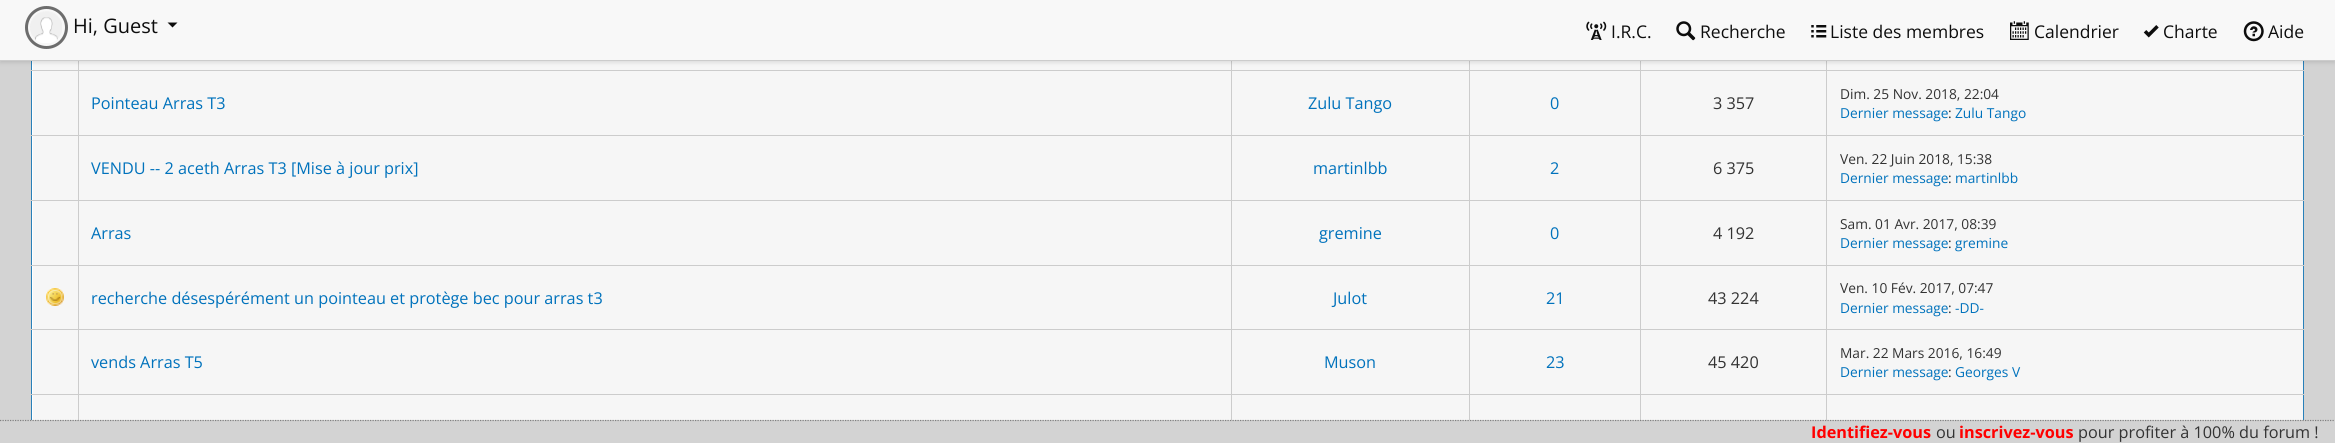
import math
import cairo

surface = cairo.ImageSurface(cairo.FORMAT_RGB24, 2335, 443)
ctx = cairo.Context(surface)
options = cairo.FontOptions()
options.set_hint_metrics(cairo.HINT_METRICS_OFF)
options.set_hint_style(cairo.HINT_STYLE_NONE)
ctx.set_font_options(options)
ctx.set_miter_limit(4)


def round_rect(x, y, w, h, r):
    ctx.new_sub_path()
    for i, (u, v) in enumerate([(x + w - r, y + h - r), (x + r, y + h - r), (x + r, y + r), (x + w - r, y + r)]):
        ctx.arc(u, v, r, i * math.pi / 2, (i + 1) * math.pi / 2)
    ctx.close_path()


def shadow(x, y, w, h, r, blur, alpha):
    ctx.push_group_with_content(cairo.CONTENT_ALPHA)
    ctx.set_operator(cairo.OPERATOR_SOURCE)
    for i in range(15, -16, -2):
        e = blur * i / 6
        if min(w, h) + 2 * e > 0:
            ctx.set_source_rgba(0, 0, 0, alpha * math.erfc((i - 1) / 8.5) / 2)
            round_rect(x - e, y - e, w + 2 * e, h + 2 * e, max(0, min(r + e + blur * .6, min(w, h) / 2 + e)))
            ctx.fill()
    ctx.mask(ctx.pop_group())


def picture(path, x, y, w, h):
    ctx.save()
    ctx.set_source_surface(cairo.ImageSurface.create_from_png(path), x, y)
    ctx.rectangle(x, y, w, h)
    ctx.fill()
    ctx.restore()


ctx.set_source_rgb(0.827, 0.827, 0.827)
ctx.paint()
ctx.set_source_rgb(1, 1, 1)
ctx.rectangle(32, 61, 1, 359)
ctx.fill()
ctx.set_source_rgb(0.161, 0.502, 0.725)
ctx.rectangle(2303, 61, 1, 359)
ctx.fill()
ctx.rectangle(31, 61, 1, 359)
ctx.fill()
ctx.set_source_rgb(0.961, 0.961, 0.961)
ctx.rectangle(33, 61, 45, 9)
ctx.fill()
ctx.rectangle(79, 61, 1390, 9)
ctx.fill()
ctx.set_source_rgb(0.8, 0.8, 0.8)
ctx.rectangle(1826, 70, 478, 1)
ctx.fill()
ctx.rectangle(1826, 135, 478, 1)
ctx.fill()
ctx.rectangle(1826, 200, 478, 1)
ctx.fill()
ctx.rectangle(1826, 265, 478, 1)
ctx.fill()
ctx.rectangle(1826, 329, 478, 1)
ctx.fill()
ctx.rectangle(1826, 394, 478, 1)
ctx.fill()
ctx.rectangle(1826, 394, 1, 26)
ctx.fill()
ctx.rectangle(1640, 394, 188, 1)
ctx.fill()
ctx.rectangle(1826, 329, 1, 66)
ctx.fill()
ctx.rectangle(1640, 329, 188, 1)
ctx.fill()
ctx.rectangle(1826, 265, 1, 65)
ctx.fill()
ctx.rectangle(1640, 265, 188, 1)
ctx.fill()
ctx.rectangle(1826, 200, 1, 66)
ctx.fill()
ctx.rectangle(1640, 200, 188, 1)
ctx.fill()
ctx.rectangle(1826, 135, 1, 66)
ctx.fill()
ctx.rectangle(1640, 135, 188, 1)
ctx.fill()
ctx.rectangle(1826, 70, 1, 66)
ctx.fill()
ctx.rectangle(1640, 70, 188, 1)
ctx.fill()
ctx.rectangle(1640, 394, 1, 26)
ctx.fill()
ctx.rectangle(1469, 394, 172, 1)
ctx.fill()
ctx.rectangle(1640, 329, 1, 66)
ctx.fill()
ctx.rectangle(1469, 329, 172, 1)
ctx.fill()
ctx.rectangle(1640, 265, 1, 65)
ctx.fill()
ctx.rectangle(1469, 265, 172, 1)
ctx.fill()
ctx.rectangle(1640, 200, 1, 66)
ctx.fill()
ctx.rectangle(1469, 200, 172, 1)
ctx.fill()
ctx.rectangle(1640, 135, 1, 66)
ctx.fill()
ctx.rectangle(1469, 135, 172, 1)
ctx.fill()
ctx.rectangle(1640, 70, 1, 66)
ctx.fill()
ctx.rectangle(1469, 70, 172, 1)
ctx.fill()
ctx.rectangle(1469, 394, 1, 26)
ctx.fill()
ctx.rectangle(1231, 394, 239, 1)
ctx.fill()
ctx.rectangle(1469, 329, 1, 66)
ctx.fill()
ctx.rectangle(1231, 329, 239, 1)
ctx.fill()
ctx.rectangle(1469, 265, 1, 65)
ctx.fill()
ctx.rectangle(1231, 265, 239, 1)
ctx.fill()
ctx.rectangle(1469, 200, 1, 66)
ctx.fill()
ctx.rectangle(1231, 200, 239, 1)
ctx.fill()
ctx.rectangle(1469, 135, 1, 66)
ctx.fill()
ctx.rectangle(1231, 135, 239, 1)
ctx.fill()
ctx.rectangle(1469, 70, 1, 66)
ctx.fill()
ctx.rectangle(1231, 70, 239, 1)
ctx.fill()
ctx.set_source_rgb(0.961, 0.961, 0.961)
ctx.rectangle(79, 71, 1390, 64)
ctx.fill()
ctx.rectangle(79, 136, 1390, 64)
ctx.fill()
ctx.rectangle(79, 201, 1390, 64)
ctx.fill()
ctx.rectangle(79, 266, 1390, 63)
ctx.fill()
ctx.rectangle(79, 330, 1390, 64)
ctx.fill()
ctx.rectangle(79, 395, 1390, 25)
ctx.fill()
ctx.set_source_rgb(0.8, 0.8, 0.8)
ctx.rectangle(1231, 394, 1, 26)
ctx.fill()
ctx.rectangle(78, 394, 1155, 1)
ctx.fill()
ctx.rectangle(1231, 329, 1, 66)
ctx.fill()
ctx.rectangle(78, 329, 1155, 1)
ctx.fill()
ctx.rectangle(1231, 265, 1, 65)
ctx.fill()
ctx.rectangle(78, 265, 1155, 1)
ctx.fill()
ctx.rectangle(1231, 200, 1, 66)
ctx.fill()
ctx.rectangle(78, 200, 1155, 1)
ctx.fill()
ctx.rectangle(1231, 135, 1, 66)
ctx.fill()
ctx.rectangle(78, 135, 1155, 1)
ctx.fill()
ctx.rectangle(1231, 70, 1, 66)
ctx.fill()
ctx.rectangle(78, 70, 1155, 1)
ctx.fill()
ctx.rectangle(78, 394, 1, 26)
ctx.fill()
ctx.rectangle(31, 394, 48, 1)
ctx.fill()
ctx.rectangle(78, 329, 1, 66)
ctx.fill()
ctx.rectangle(31, 329, 48, 1)
ctx.fill()
ctx.rectangle(78, 265, 1, 65)
ctx.fill()
ctx.rectangle(31, 265, 48, 1)
ctx.fill()
ctx.rectangle(78, 200, 1, 66)
ctx.fill()
ctx.rectangle(31, 200, 48, 1)
ctx.fill()
ctx.rectangle(78, 135, 1, 66)
ctx.fill()
ctx.rectangle(31, 135, 48, 1)
ctx.fill()
ctx.rectangle(78, 70, 1, 66)
ctx.fill()
ctx.rectangle(31, 70, 48, 1)
ctx.fill()
ctx.rectangle(78, 61, 1, 10)
ctx.fill()
ctx.rectangle(1231, 61, 1, 10)
ctx.fill()
ctx.set_source_rgb(0.961, 0.961, 0.961)
ctx.rectangle(1470, 61, 170, 9)
ctx.fill()
ctx.set_source_rgb(0.8, 0.8, 0.8)
ctx.rectangle(1469, 61, 1, 10)
ctx.fill()
ctx.set_source_rgb(0.961, 0.961, 0.961)
ctx.rectangle(1641, 61, 185, 9)
ctx.fill()
ctx.set_source_rgb(0.8, 0.8, 0.8)
ctx.rectangle(1640, 61, 1, 10)
ctx.fill()
ctx.set_source_rgb(0.961, 0.961, 0.961)
ctx.rectangle(1827, 61, 476, 9)
ctx.fill()
ctx.set_source_rgb(0.8, 0.8, 0.8)
ctx.rectangle(1826, 61, 1, 10)
ctx.fill()
ctx.set_source_rgb(0, 0, 0)
shadow(0, 1, 2335, 62, 0, 2, 0.1)
ctx.set_source_rgb(0.969, 0.969, 0.969)
ctx.rectangle(0, 0, 2335, 60)
ctx.fill()
ctx.set_source_rgb(0.8, 0.8, 0.8)
ctx.rectangle(0, 60, 2335, 1)
ctx.fill()
ctx.arc(46.5, 27.5, 20, 0, 2 * math.pi)
ctx.set_source_rgb(0.427, 0.427, 0.427)
ctx.set_line_width(3)
ctx.stroke()
picture("img1.png", 30, 11, 32, 32)
ctx.select_font_face("Open Sans")
ctx.set_font_size(20)
ctx.set_source_rgb(0.051, 0.051, 0.051)
ctx.move_to(73, 33)
ctx.show_text("Hi, Guest")
ctx.new_path()
ctx.move_to(167.5, 22.5)
ctx.line_to(177.5, 22.5)
ctx.line_to(172.5, 27.5)
ctx.close_path()
ctx.fill()
picture("img2.png", 1586, 21, 21, 19)
ctx.set_font_size(17.5)
ctx.move_to(1611, 38)
ctx.show_text("I.R.C.")
picture("img3.png", 1676, 21, 20, 20)
ctx.move_to(1700, 38)
ctx.show_text("Recherche")
picture("img4.png", 1811, 25, 16, 13)
ctx.move_to(1830, 38)
ctx.show_text("Liste des membres")
picture("img5.png", 2010, 21, 19, 19)
ctx.move_to(2034, 38)
ctx.show_text("Calendrier")
picture("img6.png", 2143, 25, 16, 13)
ctx.move_to(2163, 38)
ctx.show_text("Charte")
picture("img7.png", 2243, 21, 21, 21)
ctx.move_to(2268, 38)
ctx.show_text("Aide")
ctx.set_source_rgb(0.961, 0.961, 0.961)
ctx.rectangle(33, 71, 45, 64)
ctx.fill()
ctx.set_font_size(16.25)
ctx.set_source_rgb(0, 0.447, 0.737)
ctx.move_to(91, 109)
ctx.show_text("Pointeau Arras T3")
ctx.move_to(1308, 109)
ctx.show_text("Zulu Tango")
ctx.set_source_rgb(0.961, 0.961, 0.961)
ctx.rectangle(1470, 71, 170, 64)
ctx.fill()
ctx.set_source_rgb(0, 0.447, 0.737)
ctx.move_to(1550, 109)
ctx.show_text("0")
ctx.set_source_rgb(0.961, 0.961, 0.961)
ctx.rectangle(1641, 71, 185, 64)
ctx.fill()
ctx.set_source_rgb(0.2, 0.2, 0.2)
ctx.move_to(1713, 109)
ctx.show_text("3 357")
ctx.set_source_rgb(0.961, 0.961, 0.961)
ctx.rectangle(1827, 71, 476, 64)
ctx.fill()
ctx.set_font_size(13.75)
ctx.set_source_rgb(0.2, 0.2, 0.2)
ctx.move_to(1840, 99)
ctx.show_text("Dim. 25 Nov. 2018, 22:04")
ctx.set_source_rgb(0, 0.447, 0.737)
ctx.move_to(1840, 118)
ctx.show_text("Dernier message")
ctx.set_source_rgb(0.2, 0.2, 0.2)
ctx.move_to(1948, 118)
ctx.show_text(":")
ctx.set_source_rgb(0, 0.447, 0.737)
ctx.move_to(1955, 118)
ctx.show_text("Zulu Tango")
ctx.set_source_rgb(0.961, 0.961, 0.961)
ctx.rectangle(33, 136, 45, 64)
ctx.fill()
ctx.set_font_size(16.25)
ctx.set_source_rgb(0, 0.447, 0.737)
ctx.move_to(91, 174)
ctx.show_text("VENDU -- 2 aceth Arras T3 [Mise à jour prix]")
ctx.move_to(1313, 174)
ctx.show_text("martinlbb")
ctx.set_source_rgb(0.961, 0.961, 0.961)
ctx.rectangle(1470, 136, 170, 64)
ctx.fill()
ctx.set_source_rgb(0, 0.447, 0.737)
ctx.move_to(1550, 174)
ctx.show_text("2")
ctx.set_source_rgb(0.961, 0.961, 0.961)
ctx.rectangle(1641, 136, 185, 64)
ctx.fill()
ctx.set_source_rgb(0.2, 0.2, 0.2)
ctx.move_to(1713, 174)
ctx.show_text("6 375")
ctx.set_source_rgb(0.961, 0.961, 0.961)
ctx.rectangle(1827, 136, 476, 64)
ctx.fill()
ctx.set_font_size(13.75)
ctx.set_source_rgb(0.2, 0.2, 0.2)
ctx.move_to(1840, 164)
ctx.show_text("Ven. 22 Juin 2018, 15:38")
ctx.set_source_rgb(0, 0.447, 0.737)
ctx.move_to(1840, 183)
ctx.show_text("Dernier message")
ctx.set_source_rgb(0.2, 0.2, 0.2)
ctx.move_to(1948, 183)
ctx.show_text(":")
ctx.set_source_rgb(0, 0.447, 0.737)
ctx.move_to(1955, 183)
ctx.show_text("martinlbb")
ctx.set_source_rgb(0.961, 0.961, 0.961)
ctx.rectangle(33, 201, 45, 64)
ctx.fill()
ctx.set_font_size(16.25)
ctx.set_source_rgb(0, 0.447, 0.737)
ctx.move_to(91, 239)
ctx.show_text("Arras")
ctx.move_to(1319, 239)
ctx.show_text("gremine")
ctx.set_source_rgb(0.961, 0.961, 0.961)
ctx.rectangle(1470, 201, 170, 64)
ctx.fill()
ctx.set_source_rgb(0, 0.447, 0.737)
ctx.move_to(1550, 239)
ctx.show_text("0")
ctx.set_source_rgb(0.961, 0.961, 0.961)
ctx.rectangle(1641, 201, 185, 64)
ctx.fill()
ctx.set_source_rgb(0.2, 0.2, 0.2)
ctx.move_to(1713, 239)
ctx.show_text("4 192")
ctx.set_source_rgb(0.961, 0.961, 0.961)
ctx.rectangle(1827, 201, 476, 64)
ctx.fill()
ctx.set_font_size(13.75)
ctx.set_source_rgb(0.2, 0.2, 0.2)
ctx.move_to(1840, 229)
ctx.show_text("Sam. 01 Avr. 2017, 08:39")
ctx.set_source_rgb(0, 0.447, 0.737)
ctx.move_to(1840, 248)
ctx.show_text("Dernier message")
ctx.set_source_rgb(0.2, 0.2, 0.2)
ctx.move_to(1948, 248)
ctx.show_text(":")
ctx.set_source_rgb(0, 0.447, 0.737)
ctx.move_to(1955, 248)
ctx.show_text("gremine")
ctx.set_source_rgb(0.961, 0.961, 0.961)
ctx.rectangle(33, 266, 45, 63)
ctx.fill()
picture("img8.png", 46, 288, 18, 18)
ctx.set_font_size(16.25)
ctx.set_source_rgb(0, 0.447, 0.737)
ctx.move_to(91, 304)
ctx.show_text("recherche désespérément un pointeau et protège bec pour arras t3")
ctx.move_to(1333, 304)
ctx.show_text("Julot")
ctx.set_source_rgb(0.961, 0.961, 0.961)
ctx.rectangle(1470, 266, 170, 63)
ctx.fill()
ctx.set_source_rgb(0, 0.447, 0.737)
ctx.move_to(1546, 304)
ctx.show_text("21")
ctx.set_source_rgb(0.961, 0.961, 0.961)
ctx.rectangle(1641, 266, 185, 63)
ctx.fill()
ctx.set_source_rgb(0.2, 0.2, 0.2)
ctx.move_to(1708, 304)
ctx.show_text("43 224")
ctx.set_source_rgb(0.961, 0.961, 0.961)
ctx.rectangle(1827, 266, 476, 63)
ctx.fill()
ctx.set_font_size(13.75)
ctx.set_source_rgb(0.2, 0.2, 0.2)
ctx.move_to(1840, 293)
ctx.show_text("Ven. 10 Fév. 2017, 07:47")
ctx.set_source_rgb(0, 0.447, 0.737)
ctx.move_to(1840, 313)
ctx.show_text("Dernier message")
ctx.set_source_rgb(0.2, 0.2, 0.2)
ctx.move_to(1948, 313)
ctx.show_text(":")
ctx.set_source_rgb(0, 0.447, 0.737)
ctx.move_to(1955, 313)
ctx.show_text("-DD-")
ctx.set_source_rgb(0.961, 0.961, 0.961)
ctx.rectangle(33, 330, 45, 64)
ctx.fill()
ctx.set_font_size(16.25)
ctx.set_source_rgb(0, 0.447, 0.737)
ctx.move_to(91, 368)
ctx.show_text("vends Arras T5")
ctx.move_to(1324, 368)
ctx.show_text("Muson")
ctx.set_source_rgb(0.961, 0.961, 0.961)
ctx.rectangle(1470, 330, 170, 64)
ctx.fill()
ctx.set_source_rgb(0, 0.447, 0.737)
ctx.move_to(1546, 368)
ctx.show_text("23")
ctx.set_source_rgb(0.961, 0.961, 0.961)
ctx.rectangle(1641, 330, 185, 64)
ctx.fill()
ctx.set_source_rgb(0.2, 0.2, 0.2)
ctx.move_to(1708, 368)
ctx.show_text("45 420")
ctx.set_source_rgb(0.961, 0.961, 0.961)
ctx.rectangle(1827, 330, 476, 64)
ctx.fill()
ctx.set_font_size(13.75)
ctx.set_source_rgb(0.2, 0.2, 0.2)
ctx.move_to(1840, 358)
ctx.show_text("Mar. 22 Mars 2016, 16:49")
ctx.set_source_rgb(0, 0.447, 0.737)
ctx.move_to(1840, 377)
ctx.show_text("Dernier message")
ctx.set_source_rgb(0.2, 0.2, 0.2)
ctx.move_to(1948, 377)
ctx.show_text(":")
ctx.set_source_rgb(0, 0.447, 0.737)
ctx.move_to(1955, 377)
ctx.show_text("Georges V")
ctx.set_source_rgb(0.961, 0.961, 0.961)
ctx.rectangle(33, 395, 45, 25)
ctx.fill()
ctx.rectangle(1470, 395, 170, 25)
ctx.fill()
ctx.rectangle(1641, 395, 185, 25)
ctx.fill()
ctx.rectangle(1827, 395, 476, 25)
ctx.fill()
ctx.new_path()
ctx.move_to(0, 420.5)
ctx.line_to(2335, 420.5)
ctx.set_source_rgb(0.502, 0.502, 0.502)
ctx.set_line_width(1.2)
ctx.set_dash([1.25, 1.25])
ctx.stroke()
ctx.select_font_face("Open Sans", cairo.FONT_SLANT_NORMAL, cairo.FONT_WEIGHT_BOLD)
ctx.set_font_size(16.25)
ctx.set_source_rgb(1, 0, 0)
ctx.move_to(1811, 438)
ctx.show_text("Identifiez-vous")
ctx.select_font_face("Open Sans")
ctx.set_source_rgb(0.2, 0.2, 0.2)
ctx.move_to(1936, 438)
ctx.show_text("ou")
ctx.select_font_face("Open Sans", cairo.FONT_SLANT_NORMAL, cairo.FONT_WEIGHT_BOLD)
ctx.set_source_rgb(1, 0, 0)
ctx.move_to(1959, 438)
ctx.show_text("inscrivez-vous")
ctx.select_font_face("Open Sans")
ctx.set_source_rgb(0.2, 0.2, 0.2)
ctx.move_to(2078, 438)
ctx.show_text("pour profiter à 100% du forum !")
surface.write_to_png("page.png")
